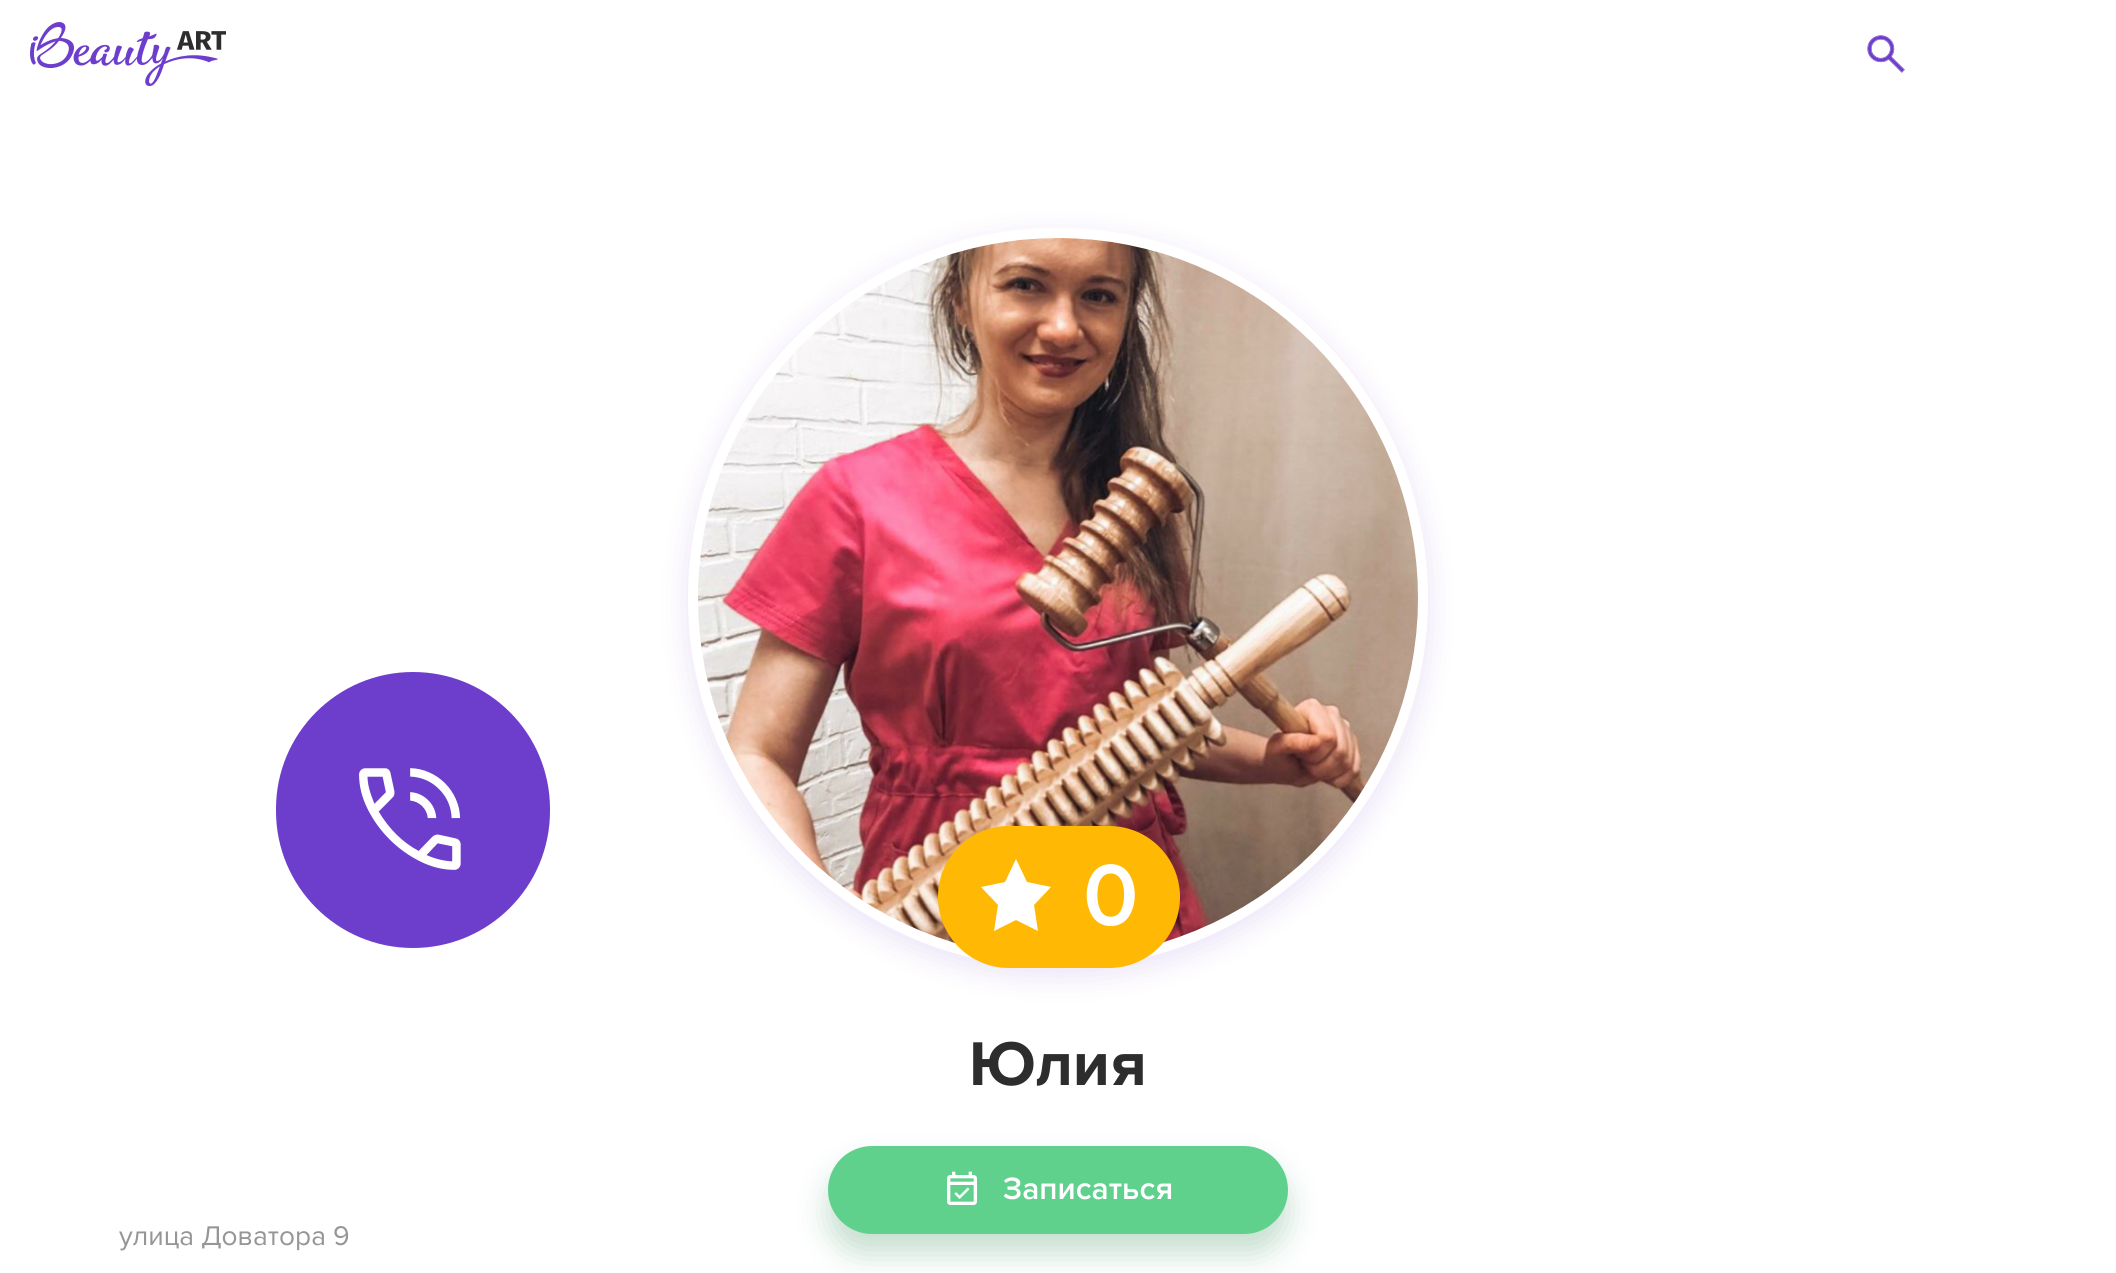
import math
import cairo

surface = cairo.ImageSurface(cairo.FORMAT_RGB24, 2116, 1273)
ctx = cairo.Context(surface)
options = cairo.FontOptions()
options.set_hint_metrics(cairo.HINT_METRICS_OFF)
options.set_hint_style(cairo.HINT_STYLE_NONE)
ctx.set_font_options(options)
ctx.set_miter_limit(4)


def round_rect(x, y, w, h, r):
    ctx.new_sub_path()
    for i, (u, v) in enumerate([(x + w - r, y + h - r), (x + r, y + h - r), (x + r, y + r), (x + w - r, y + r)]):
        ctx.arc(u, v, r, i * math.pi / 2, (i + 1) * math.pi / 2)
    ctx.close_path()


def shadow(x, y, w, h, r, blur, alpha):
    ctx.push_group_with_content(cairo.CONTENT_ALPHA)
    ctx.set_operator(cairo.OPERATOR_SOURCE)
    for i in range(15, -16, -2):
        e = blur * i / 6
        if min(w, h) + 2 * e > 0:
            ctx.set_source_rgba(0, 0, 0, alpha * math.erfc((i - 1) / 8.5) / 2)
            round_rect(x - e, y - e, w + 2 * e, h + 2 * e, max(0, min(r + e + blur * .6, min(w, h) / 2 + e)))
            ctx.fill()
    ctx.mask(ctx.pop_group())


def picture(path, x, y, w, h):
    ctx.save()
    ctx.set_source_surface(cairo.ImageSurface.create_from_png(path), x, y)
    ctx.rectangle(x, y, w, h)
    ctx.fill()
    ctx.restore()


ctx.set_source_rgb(1, 1, 1)
ctx.paint()
picture("img1.png", 30, 22, 196, 64)
picture("img2.png", 1867, 35, 38, 38)
ctx.set_source_rgb(0.427, 0.239, 0.8)
round_rect(277, 673, 272, 274, 136)
ctx.fill_preserve()
ctx.stroke()
picture("img3.png", 359, 768, 102, 102)
ctx.set_source_rgb(0.427, 0.239, 0.8)
shadow(688, 236, 740, 740, 370, 15, 0.15)
ctx.set_source_rgb(1, 1, 1)
ctx.arc(1058, 598, 365, 0, 2 * math.pi)
ctx.fill_preserve()
ctx.set_line_width(10)
ctx.stroke()
picture("img4.png", 698, 238, 720, 706)
ctx.set_source_rgb(1, 0.722, 0.012)
round_rect(938, 826, 242, 142, 71)
ctx.fill()
ctx.set_source_rgb(1, 1, 1)
ctx.new_path()
ctx.move_to(1016, 859)
ctx.line_to(1027, 882)
ctx.line_to(1051, 887)
ctx.line_to(1034, 905)
ctx.line_to(1038, 931)
ctx.line_to(1016, 920)
ctx.line_to(994, 931)
ctx.line_to(998, 905)
ctx.line_to(981, 887)
ctx.line_to(1005, 882)
ctx.close_path()
ctx.fill()
ctx.select_font_face("Proxima Nova SemiBold")
ctx.set_font_size(90)
ctx.move_to(1083, 925)
ctx.show_text("0")
ctx.set_source_rgb(0.78, 0.875, 0.82)
shadow(828, 1166, 460, 88, 44, 15, 1)
ctx.set_source_rgb(0.376, 0.82, 0.553)
round_rect(828, 1146, 460, 88, 44)
ctx.fill()
picture("img5.png", 947, 1171, 30, 34)
ctx.set_font_size(32)
ctx.set_source_rgb(1, 1, 1)
ctx.move_to(1003, 1199)
ctx.show_text("Записаться")
ctx.select_font_face("Proxima Nova", cairo.FONT_SLANT_NORMAL, cairo.FONT_WEIGHT_BOLD)
ctx.set_font_size(64)
ctx.set_source_rgb(0.176, 0.176, 0.176)
ctx.move_to(969, 1085)
ctx.show_text("Юлия")
ctx.select_font_face("Proxima Nova")
ctx.set_font_size(28)
ctx.set_source_rgb(0.588, 0.588, 0.588)
ctx.move_to(119, 1245)
ctx.show_text("улица Доватора 9")
surface.write_to_png("page.png")
